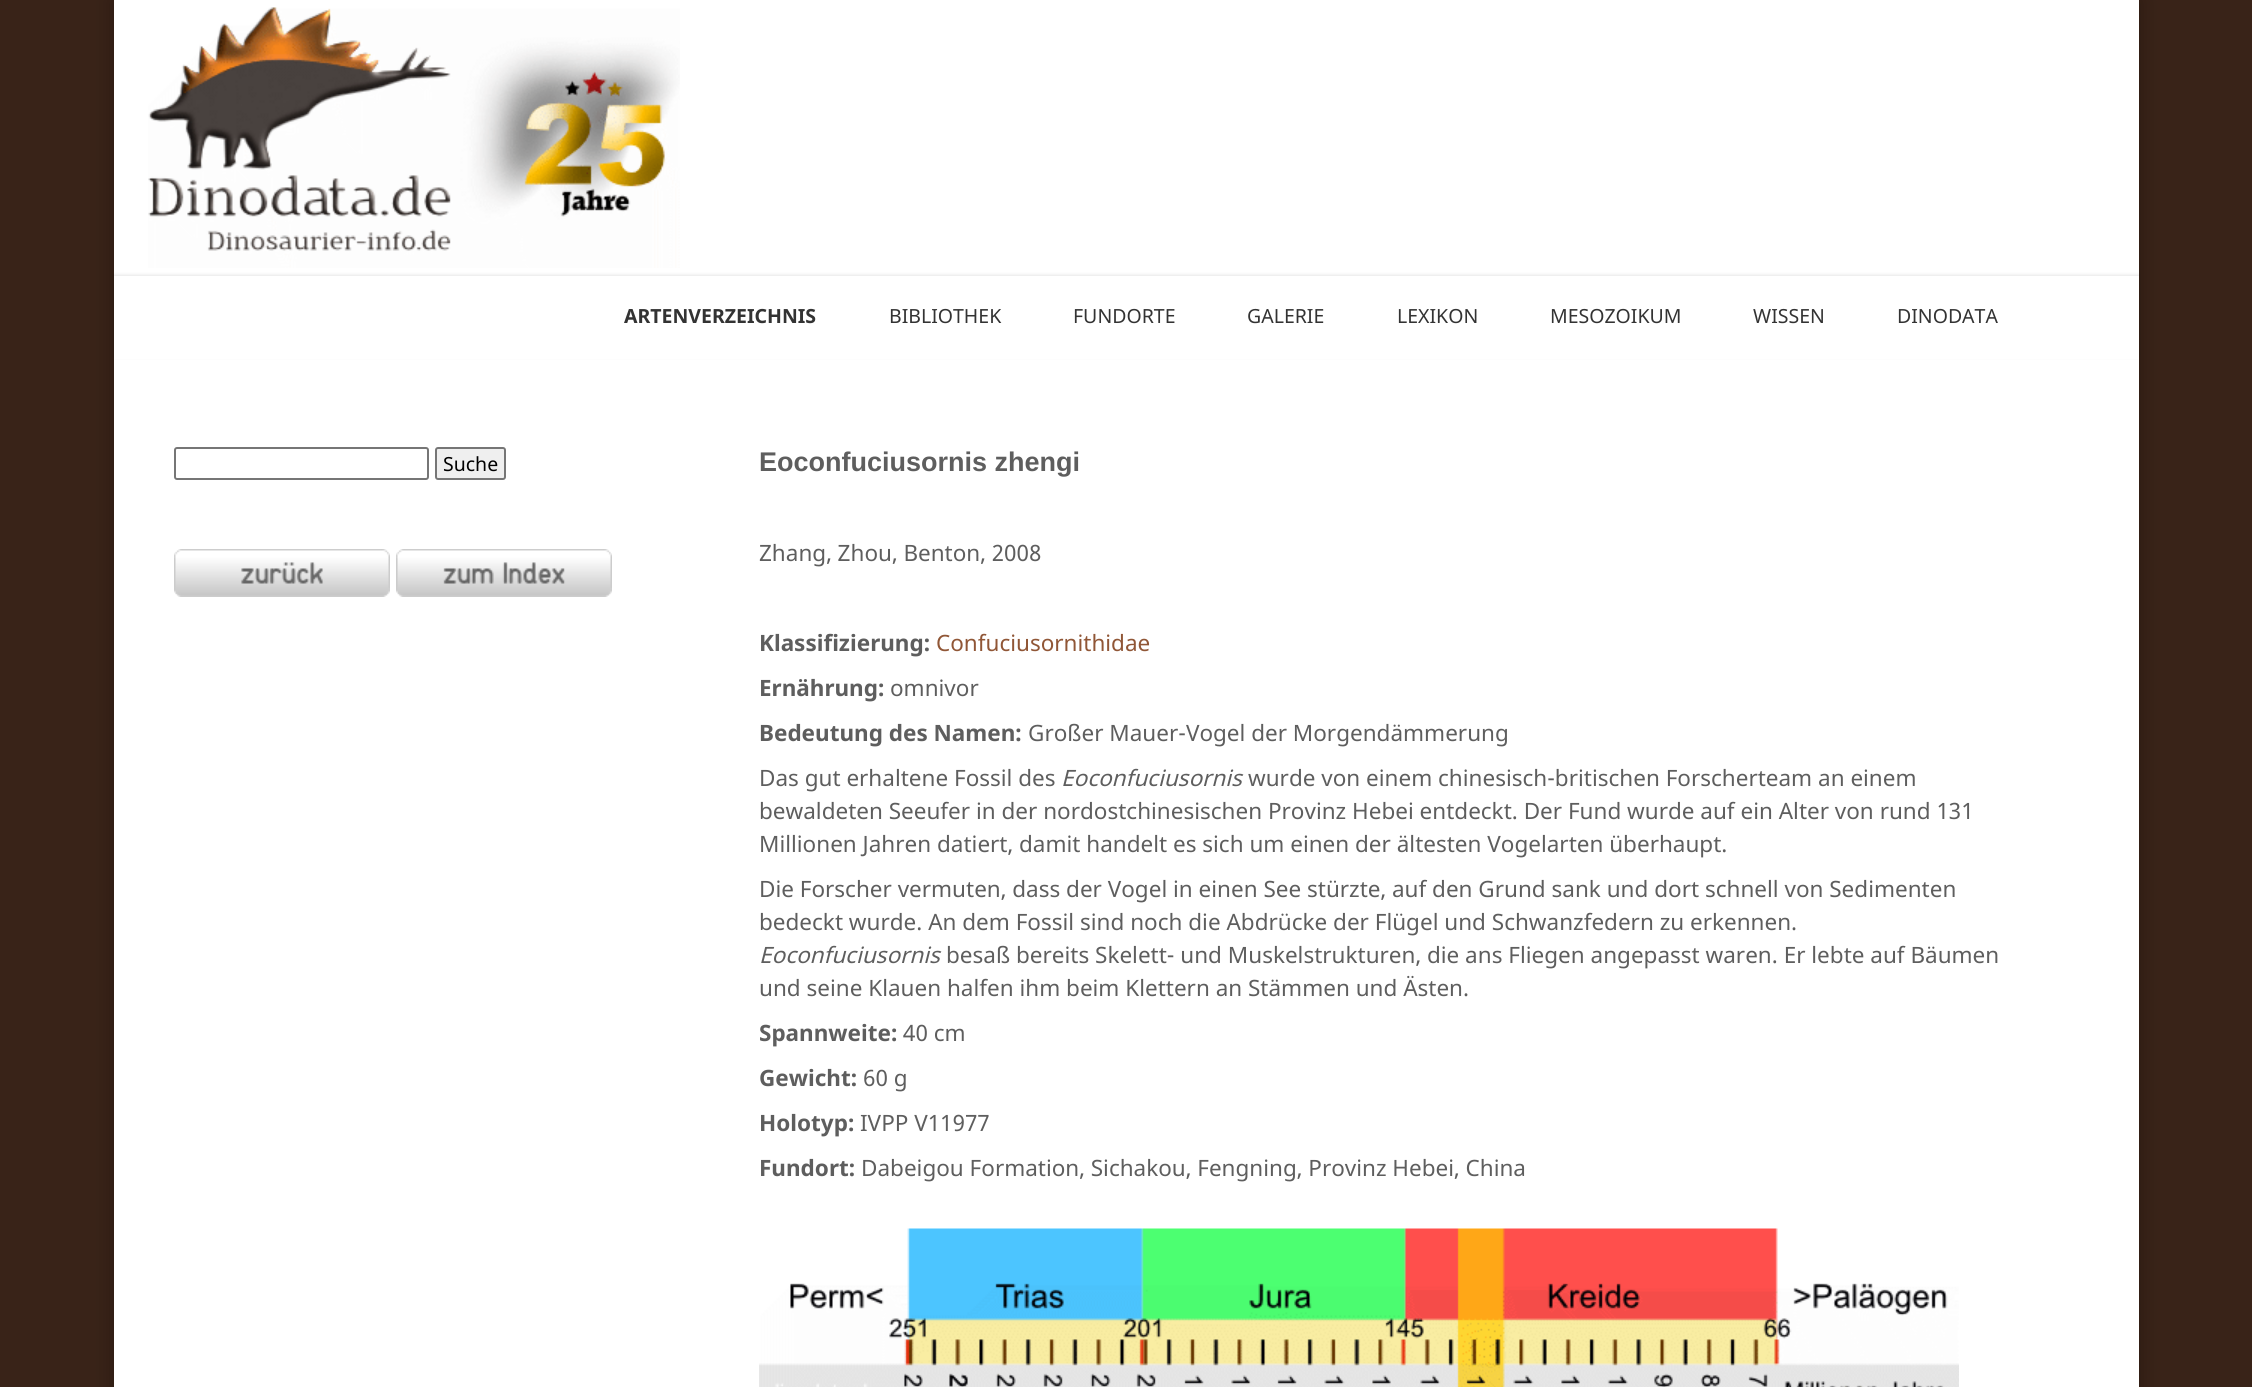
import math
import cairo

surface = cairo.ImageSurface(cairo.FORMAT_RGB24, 2252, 1387)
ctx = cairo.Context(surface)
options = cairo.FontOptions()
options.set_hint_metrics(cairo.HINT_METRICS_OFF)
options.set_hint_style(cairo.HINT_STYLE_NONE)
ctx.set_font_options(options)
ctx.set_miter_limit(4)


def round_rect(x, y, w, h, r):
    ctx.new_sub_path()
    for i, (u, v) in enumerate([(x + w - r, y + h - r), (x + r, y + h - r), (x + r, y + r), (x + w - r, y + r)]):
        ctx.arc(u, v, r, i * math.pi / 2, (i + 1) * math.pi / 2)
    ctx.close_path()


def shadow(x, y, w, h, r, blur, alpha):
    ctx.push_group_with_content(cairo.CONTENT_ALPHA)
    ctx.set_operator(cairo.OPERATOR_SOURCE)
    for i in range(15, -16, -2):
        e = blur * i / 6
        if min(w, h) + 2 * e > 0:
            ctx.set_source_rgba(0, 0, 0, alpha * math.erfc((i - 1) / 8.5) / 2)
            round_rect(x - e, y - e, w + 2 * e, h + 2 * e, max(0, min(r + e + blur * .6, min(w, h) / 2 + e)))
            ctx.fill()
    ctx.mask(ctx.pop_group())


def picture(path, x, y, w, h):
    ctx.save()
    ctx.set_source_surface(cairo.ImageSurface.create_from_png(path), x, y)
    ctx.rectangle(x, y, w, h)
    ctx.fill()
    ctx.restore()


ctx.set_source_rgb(0.224, 0.137, 0.094)
ctx.paint()
ctx.set_source_rgb(0, 0, 0)
shadow(114, 0, 2025, 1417, 0, 10, 0.3)
ctx.set_source_rgb(1, 1, 1)
ctx.rectangle(114, 0, 2025, 1387)
ctx.fill()
picture("img1.png", 148, 7, 532, 261)
ctx.save()
ctx.set_fill_rule(cairo.FILL_RULE_EVEN_ODD)
ctx.new_path()
ctx.move_to(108, 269)
ctx.line_to(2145, 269)
ctx.line_to(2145, 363)
ctx.line_to(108, 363)
ctx.close_path()
ctx.move_to(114, 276)
ctx.line_to(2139, 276)
ctx.line_to(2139, 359)
ctx.line_to(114, 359)
ctx.close_path()
ctx.clip()
ctx.set_source_rgb(0, 0, 0)
shadow(114, 275, 2025, 82, 0, 1.5, 0.1)
ctx.restore()
ctx.select_font_face("Noto Sans", cairo.FONT_SLANT_NORMAL, cairo.FONT_WEIGHT_BOLD)
ctx.set_font_size(19.5)
ctx.set_source_rgb(0.2, 0.2, 0.2)
ctx.move_to(624, 323)
ctx.show_text("ARTENVERZEICHNIS")
ctx.select_font_face("Noto Sans")
ctx.move_to(889, 323)
ctx.show_text("BIBLIOTHEK")
ctx.move_to(1073, 323)
ctx.show_text("FUNDORTE")
ctx.move_to(1247, 323)
ctx.show_text("GALERIE")
ctx.move_to(1397, 323)
ctx.show_text("LEXIKON")
ctx.move_to(1550, 323)
ctx.show_text("MESOZOIKUM")
ctx.move_to(1753, 323)
ctx.show_text("WISSEN")
ctx.move_to(1897, 323)
ctx.show_text("DINODATA")
round_rect(175, 448, 253, 31, 2)
ctx.set_source_rgb(0.463, 0.463, 0.463)
ctx.stroke()
ctx.set_source_rgb(0.937, 0.937, 0.937)
round_rect(436, 448, 69, 31, 2)
ctx.fill_preserve()
ctx.set_source_rgb(0.463, 0.463, 0.463)
ctx.stroke()
ctx.set_source_rgb(0, 0, 0)
ctx.move_to(443, 471)
ctx.show_text("Suche")
picture("img2.png", 174, 549, 216, 48)
picture("img3.png", 396, 549, 216, 48)
ctx.select_font_face("Liberation Sans", cairo.FONT_SLANT_NORMAL, cairo.FONT_WEIGHT_BOLD)
ctx.set_font_size(27)
ctx.set_source_rgb(0.369, 0.369, 0.369)
ctx.move_to(759, 471)
ctx.show_text("Eoconfuciusornis zhengi")
ctx.select_font_face("Noto Sans")
ctx.set_font_size(22.5)
ctx.move_to(759, 561)
ctx.show_text("Zhang, Zhou, Benton, 2008")
ctx.select_font_face("Noto Sans", cairo.FONT_SLANT_NORMAL, cairo.FONT_WEIGHT_BOLD)
ctx.move_to(759, 651)
ctx.show_text("Klassifizierung:")
ctx.select_font_face("Noto Sans")
ctx.set_source_rgb(0.565, 0.337, 0.212)
ctx.move_to(936, 651)
ctx.show_text("Confuciusornithidae")
ctx.select_font_face("Noto Sans", cairo.FONT_SLANT_NORMAL, cairo.FONT_WEIGHT_BOLD)
ctx.set_source_rgb(0.369, 0.369, 0.369)
ctx.move_to(759, 696)
ctx.show_text("Ernährung:")
ctx.select_font_face("Noto Sans")
ctx.move_to(890, 696)
ctx.show_text("omnivor")
ctx.select_font_face("Noto Sans", cairo.FONT_SLANT_NORMAL, cairo.FONT_WEIGHT_BOLD)
ctx.move_to(759, 741)
ctx.show_text("Bedeutung des Namen:")
ctx.select_font_face("Noto Sans")
ctx.move_to(1028, 741)
ctx.show_text("Großer Mauer-Vogel der Morgendämmerung")
ctx.move_to(759, 786)
ctx.show_text("Das gut erhaltene Fossil des")
ctx.select_font_face("Noto Sans", cairo.FONT_SLANT_ITALIC)
ctx.move_to(1061, 786)
ctx.show_text("Eoconfuciusornis")
ctx.select_font_face("Noto Sans")
ctx.move_to(1248, 786)
ctx.show_text("wurde von einem chinesisch-britischen Forscherteam an einem")
ctx.move_to(759, 819)
ctx.show_text("bewaldeten Seeufer in der nordostchinesischen Provinz Hebei entdeckt. Der Fund wurde auf ein Alter von rund 131")
ctx.move_to(759, 852)
ctx.show_text("Millionen Jahren datiert, damit handelt es sich um einen der ältesten Vogelarten überhaupt.")
ctx.move_to(759, 897)
ctx.show_text("Die Forscher vermuten, dass der Vogel in einen See stürzte, auf den Grund sank und dort schnell von Sedimenten")
ctx.move_to(759, 930)
ctx.show_text("bedeckt wurde. An dem Fossil sind noch die Abdrücke der Flügel und Schwanzfedern zu erkennen.")
ctx.select_font_face("Noto Sans", cairo.FONT_SLANT_ITALIC)
ctx.move_to(759, 963)
ctx.show_text("Eoconfuciusornis")
ctx.select_font_face("Noto Sans")
ctx.move_to(946, 963)
ctx.show_text("besaß bereits Skelett- und Muskelstrukturen, die ans Fliegen angepasst waren. Er lebte auf Bäumen")
ctx.move_to(759, 996)
ctx.show_text("und seine Klauen halfen ihm beim Klettern an Stämmen und Ästen.")
ctx.select_font_face("Noto Sans", cairo.FONT_SLANT_NORMAL, cairo.FONT_WEIGHT_BOLD)
ctx.move_to(759, 1041)
ctx.show_text("Spannweite:")
ctx.select_font_face("Noto Sans")
ctx.move_to(903, 1041)
ctx.show_text("40 cm")
ctx.select_font_face("Noto Sans", cairo.FONT_SLANT_NORMAL, cairo.FONT_WEIGHT_BOLD)
ctx.move_to(759, 1086)
ctx.show_text("Gewicht:")
ctx.select_font_face("Noto Sans")
ctx.move_to(863, 1086)
ctx.show_text("60 g")
ctx.select_font_face("Noto Sans", cairo.FONT_SLANT_NORMAL, cairo.FONT_WEIGHT_BOLD)
ctx.move_to(759, 1131)
ctx.show_text("Holotyp:")
ctx.select_font_face("Noto Sans")
ctx.move_to(860, 1131)
ctx.show_text("IVPP V11977")
ctx.select_font_face("Noto Sans", cairo.FONT_SLANT_NORMAL, cairo.FONT_WEIGHT_BOLD)
ctx.move_to(759, 1176)
ctx.show_text("Fundort:")
ctx.select_font_face("Noto Sans")
ctx.move_to(861, 1176)
ctx.show_text("Dabeigou Formation, Sichakou, Fengning, Provinz Hebei, China")
picture("img4.png", 759, 1228, 1200, 159)
surface.write_to_png("page.png")
